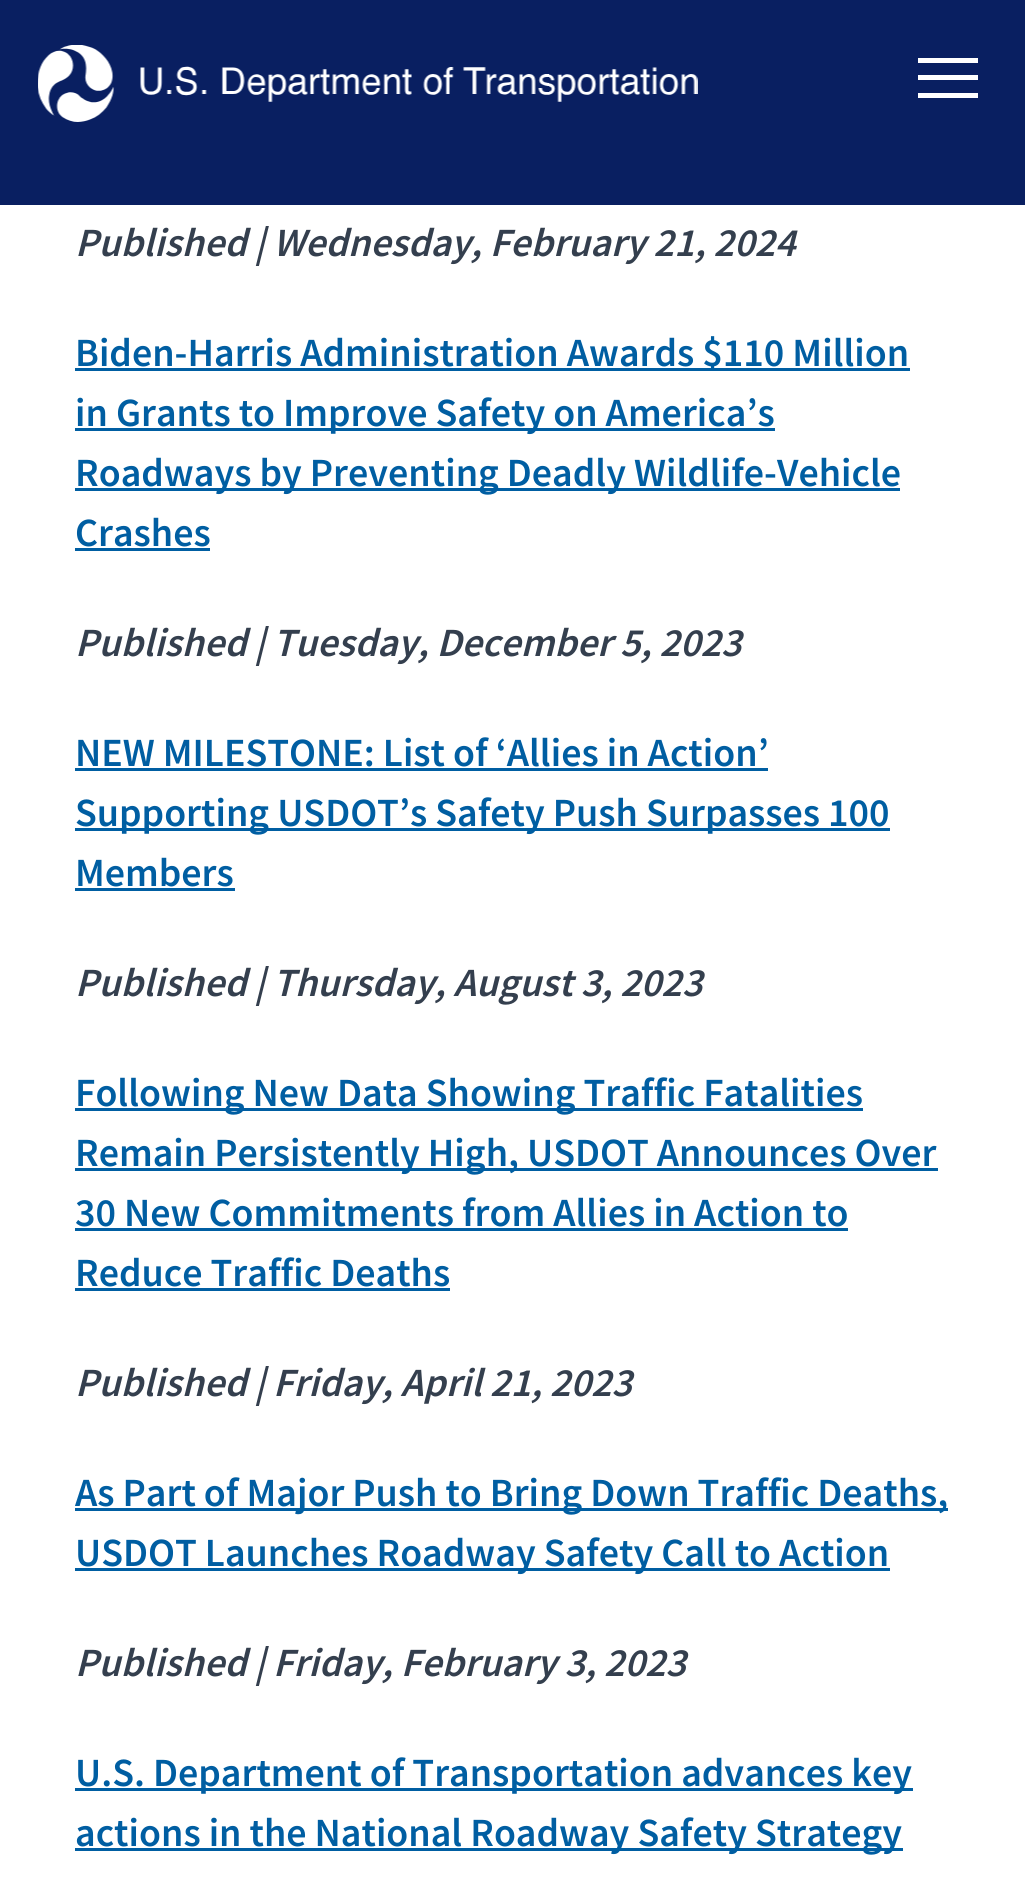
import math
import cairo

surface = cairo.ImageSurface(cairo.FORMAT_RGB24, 1025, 1881)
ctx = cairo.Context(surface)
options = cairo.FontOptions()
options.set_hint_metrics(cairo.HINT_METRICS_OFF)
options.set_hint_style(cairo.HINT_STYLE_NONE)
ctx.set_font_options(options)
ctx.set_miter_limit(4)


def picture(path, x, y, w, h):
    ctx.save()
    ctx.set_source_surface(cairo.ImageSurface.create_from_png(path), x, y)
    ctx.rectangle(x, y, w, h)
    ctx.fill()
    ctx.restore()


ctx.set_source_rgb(1, 1, 1)
ctx.paint()
ctx.set_source_rgb(0.039, 0.122, 0.38)
ctx.rectangle(0, 0, 1025, 205)
ctx.fill()
picture("img1.png", 38, 45, 660, 77)
ctx.set_source_rgb(1, 1, 1)
ctx.rectangle(918, 58, 60, 5)
ctx.fill()
ctx.rectangle(918, 75, 60, 5)
ctx.fill()
ctx.rectangle(918, 93, 60, 5)
ctx.fill()
ctx.select_font_face("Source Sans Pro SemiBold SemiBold", cairo.FONT_SLANT_ITALIC)
ctx.set_font_size(40)
ctx.set_source_rgb(0.204, 0.247, 0.306)
ctx.move_to(75, 256)
ctx.show_text("Published | Wednesday, February 21, 2024")
ctx.set_source_rgb(0, 0.369, 0.635)
ctx.rectangle(75, 368, 835, 3)
ctx.fill()
ctx.select_font_face("Source Sans Pro SemiBold SemiBold")
ctx.move_to(75, 366)
ctx.show_text("Biden-Harris Administration Awards $110 Million")
ctx.rectangle(75, 428, 700, 3)
ctx.fill()
ctx.move_to(75, 426)
ctx.show_text("in Grants to Improve Safety on America’s")
ctx.rectangle(75, 488, 825, 3)
ctx.fill()
ctx.move_to(75, 486)
ctx.show_text("Roadways by Preventing Deadly Wildlife-Vehicle")
ctx.move_to(75, 546)
ctx.show_text("Crashes")
ctx.rectangle(75, 548, 135, 3)
ctx.fill()
ctx.select_font_face("Source Sans Pro SemiBold SemiBold", cairo.FONT_SLANT_ITALIC)
ctx.set_source_rgb(0.204, 0.247, 0.306)
ctx.move_to(75, 656)
ctx.show_text("Published | Tuesday, December 5, 2023")
ctx.select_font_face("Source Sans Pro SemiBold SemiBold")
ctx.set_source_rgb(0, 0.369, 0.635)
ctx.move_to(75, 766)
ctx.show_text("NEW MILESTONE: List of ‘Allies in Action’")
ctx.rectangle(75, 768, 693, 3)
ctx.fill()
ctx.rectangle(75, 828, 815, 3)
ctx.fill()
ctx.move_to(75, 826)
ctx.show_text("Supporting USDOT’s Safety Push Surpasses 100")
ctx.move_to(75, 886)
ctx.show_text("Members")
ctx.rectangle(75, 888, 160, 3)
ctx.fill()
ctx.select_font_face("Source Sans Pro SemiBold SemiBold", cairo.FONT_SLANT_ITALIC)
ctx.set_source_rgb(0.204, 0.247, 0.306)
ctx.move_to(75, 996)
ctx.show_text("Published | Thursday, August 3, 2023")
ctx.set_source_rgb(0, 0.369, 0.635)
ctx.rectangle(75, 1108, 788, 3)
ctx.fill()
ctx.select_font_face("Source Sans Pro SemiBold SemiBold")
ctx.move_to(75, 1106)
ctx.show_text("Following New Data Showing Traffic Fatalities")
ctx.rectangle(75, 1168, 863, 3)
ctx.fill()
ctx.move_to(75, 1166)
ctx.show_text("Remain Persistently High, USDOT Announces Over")
ctx.move_to(75, 1226)
ctx.show_text("30 New Commitments from Allies in Action to")
ctx.rectangle(75, 1228, 773, 3)
ctx.fill()
ctx.move_to(75, 1286)
ctx.show_text("Reduce Traffic Deaths")
ctx.rectangle(75, 1288, 375, 3)
ctx.fill()
ctx.select_font_face("Source Sans Pro SemiBold SemiBold", cairo.FONT_SLANT_ITALIC)
ctx.set_source_rgb(0.204, 0.247, 0.306)
ctx.move_to(75, 1396)
ctx.show_text("Published | Friday, April 21, 2023")
ctx.set_source_rgb(0, 0.369, 0.635)
ctx.rectangle(75, 1508, 873, 3)
ctx.fill()
ctx.select_font_face("Source Sans Pro SemiBold SemiBold")
ctx.move_to(75, 1506)
ctx.show_text("As Part of Major Push to Bring Down Traffic Deaths,")
ctx.rectangle(75, 1568, 815, 3)
ctx.fill()
ctx.move_to(75, 1566)
ctx.show_text("USDOT Launches Roadway Safety Call to Action")
ctx.select_font_face("Source Sans Pro SemiBold SemiBold", cairo.FONT_SLANT_ITALIC)
ctx.set_source_rgb(0.204, 0.247, 0.306)
ctx.move_to(75, 1676)
ctx.show_text("Published | Friday, February 3, 2023")
ctx.set_source_rgb(0, 0.369, 0.635)
ctx.rectangle(75, 1788, 838, 3)
ctx.fill()
ctx.select_font_face("Source Sans Pro SemiBold SemiBold")
ctx.move_to(75, 1786)
ctx.show_text("U.S. Department of Transportation advances key")
ctx.rectangle(75, 1848, 828, 3)
ctx.fill()
ctx.move_to(75, 1846)
ctx.show_text("actions in the National Roadway Safety Strategy")
surface.write_to_png("page.png")
